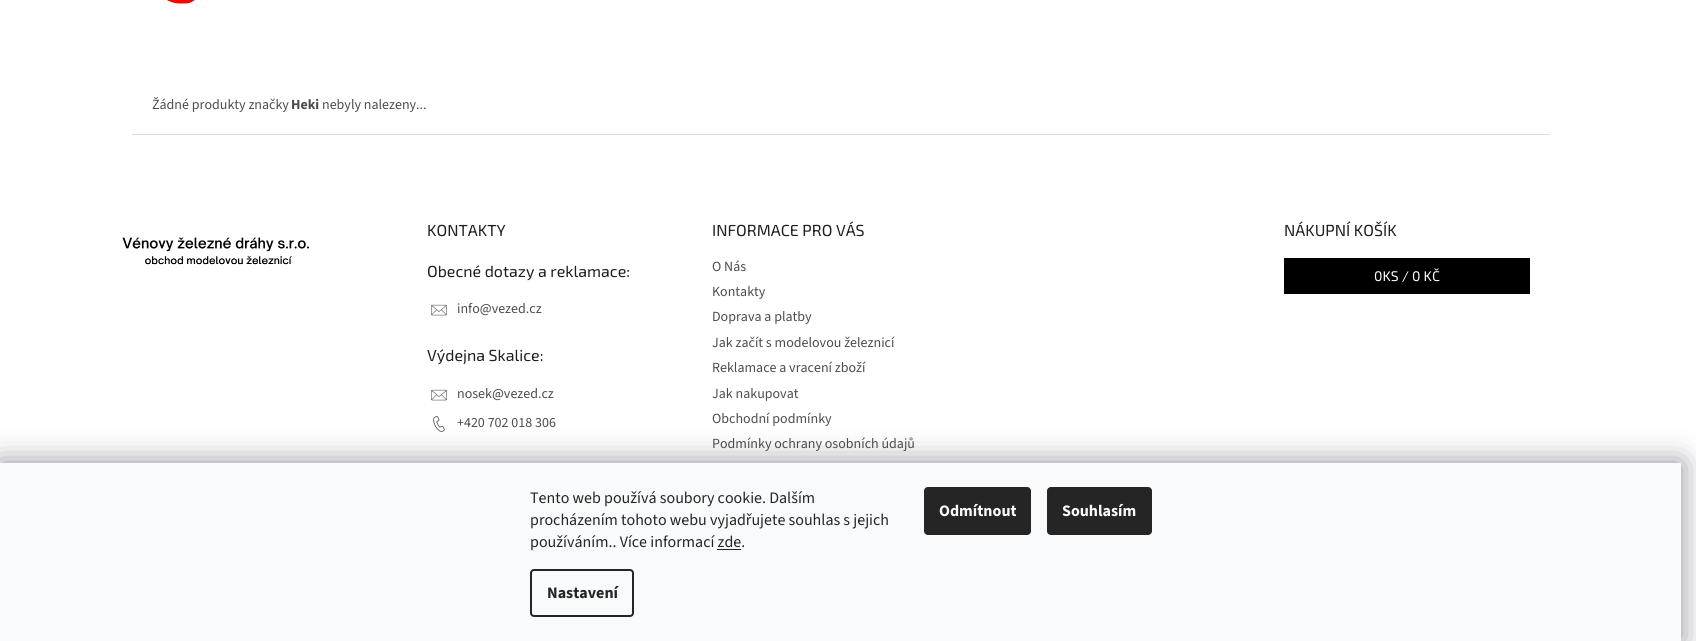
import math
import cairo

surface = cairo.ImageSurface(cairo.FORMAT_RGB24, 1696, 641)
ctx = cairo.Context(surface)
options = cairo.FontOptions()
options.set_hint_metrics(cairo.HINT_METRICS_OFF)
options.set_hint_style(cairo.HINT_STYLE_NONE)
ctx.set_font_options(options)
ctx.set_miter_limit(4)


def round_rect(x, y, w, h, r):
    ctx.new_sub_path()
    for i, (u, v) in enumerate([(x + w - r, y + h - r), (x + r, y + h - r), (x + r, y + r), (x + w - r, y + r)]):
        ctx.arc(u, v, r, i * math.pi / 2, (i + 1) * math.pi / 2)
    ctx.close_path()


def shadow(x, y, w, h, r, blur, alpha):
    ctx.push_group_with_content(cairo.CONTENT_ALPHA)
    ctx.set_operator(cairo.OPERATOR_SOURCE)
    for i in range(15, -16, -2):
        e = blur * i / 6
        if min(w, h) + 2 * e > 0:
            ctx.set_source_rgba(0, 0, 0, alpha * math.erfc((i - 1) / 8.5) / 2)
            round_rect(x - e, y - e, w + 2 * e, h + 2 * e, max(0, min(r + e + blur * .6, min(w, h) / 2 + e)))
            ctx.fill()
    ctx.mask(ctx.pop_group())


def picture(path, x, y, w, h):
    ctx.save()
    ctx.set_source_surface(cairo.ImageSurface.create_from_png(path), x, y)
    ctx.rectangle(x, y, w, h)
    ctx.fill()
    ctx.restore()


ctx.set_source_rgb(1, 1, 1)
ctx.paint()
picture("img1.png", 167, 0, 29, 4)
ctx.select_font_face("Source Sans 3")
ctx.set_font_size(14)
ctx.set_source_rgb(0.302, 0.302, 0.302)
ctx.move_to(152, 109)
ctx.show_text("Žádné produkty značky")
ctx.select_font_face("Source Sans 3", cairo.FONT_SLANT_NORMAL, cairo.FONT_WEIGHT_BOLD)
ctx.move_to(291, 109)
ctx.show_text("Heki")
ctx.select_font_face("Source Sans 3")
ctx.move_to(322, 109)
ctx.show_text("nebyly nalezeny...")
picture("img2.png", 122, 237, 187, 28)
ctx.set_source_rgb(0.855, 0.855, 0.855)
ctx.rectangle(132, 134, 1418, 1)
ctx.fill()
ctx.select_font_face("Exo 2")
ctx.set_font_size(16)
ctx.set_source_rgb(0.122, 0.122, 0.122)
ctx.move_to(427, 236)
ctx.show_text("KONTAKTY")
ctx.move_to(427, 277)
ctx.show_text("Obecné dotazy a reklamace:")
picture("img3.png", 431, 304, 16, 12)
ctx.select_font_face("Source Sans 3")
ctx.set_font_size(14)
ctx.set_source_rgb(0.302, 0.302, 0.302)
ctx.move_to(457, 313)
ctx.show_text("info@vezed.cz")
ctx.select_font_face("Exo 2")
ctx.set_font_size(16)
ctx.set_source_rgb(0.122, 0.122, 0.122)
ctx.move_to(427, 361)
ctx.show_text("Výdejna Skalice:")
picture("img3.png", 431, 389, 16, 12)
ctx.select_font_face("Source Sans 3")
ctx.set_font_size(14)
ctx.set_source_rgb(0.302, 0.302, 0.302)
ctx.move_to(457, 398)
ctx.show_text("nosek@vezed.cz")
picture("img4.png", 433, 416, 12, 16)
ctx.move_to(457, 427)
ctx.show_text("+420 702 018 306")
ctx.select_font_face("Exo 2")
ctx.set_font_size(16)
ctx.set_source_rgb(0.122, 0.122, 0.122)
ctx.move_to(712, 236)
ctx.show_text("INFORMACE PRO VÁS")
ctx.select_font_face("Source Sans 3")
ctx.set_font_size(14)
ctx.set_source_rgb(0.302, 0.302, 0.302)
ctx.move_to(712, 271)
ctx.show_text("O Nás")
ctx.move_to(712, 296)
ctx.show_text("Kontakty")
ctx.move_to(712, 321)
ctx.show_text("Doprava a platby")
ctx.move_to(712, 347)
ctx.show_text("Jak začít s modelovou železnicí")
ctx.move_to(712, 372)
ctx.show_text("Reklamace a vracení zboží")
ctx.move_to(712, 398)
ctx.show_text("Jak nakupovat")
ctx.move_to(712, 423)
ctx.show_text("Obchodní podmínky")
ctx.move_to(712, 448)
ctx.show_text("Podmínky ochrany osobních údajů")
ctx.select_font_face("Exo 2")
ctx.set_font_size(16)
ctx.set_source_rgb(0.122, 0.122, 0.122)
ctx.move_to(1284, 236)
ctx.show_text("NÁKUPNÍ KOŠÍK")
ctx.set_source_rgb(0, 0, 0)
ctx.rectangle(1284, 258, 246, 36)
ctx.fill()
ctx.set_font_size(14)
ctx.set_source_rgb(1, 1, 1)
ctx.move_to(1374, 281)
ctx.show_text("0KS / 0 KČ")
ctx.set_source_rgb(0.106, 0.098, 0.224)
shadow(0, 463, 1681, 178, 0, 15, 0.5)
ctx.set_source_rgb(0.973, 0.98, 0.984)
ctx.rectangle(0, 463, 1681, 178)
ctx.fill()
ctx.select_font_face("Source Sans 3")
ctx.set_font_size(16)
ctx.set_source_rgb(0.145, 0.145, 0.145)
ctx.move_to(530, 503)
ctx.show_text("Tento web používá soubory cookie. Dalším")
ctx.move_to(530, 525)
ctx.show_text("procházením tohoto webu vyjadřujete souhlas s jejich")
ctx.move_to(530, 547)
ctx.show_text("používáním.. Více informací zde.")
ctx.rectangle(717, 549, 24, 1)
ctx.fill()
round_rect(531, 570, 102, 46, 3)
ctx.stroke()
ctx.select_font_face("Source Sans 3", cairo.FONT_SLANT_NORMAL, cairo.FONT_WEIGHT_BOLD)
ctx.move_to(547, 598)
ctx.show_text("Nastavení")
round_rect(924, 487, 107, 48, 4)
ctx.fill()
ctx.set_source_rgb(0.973, 0.98, 0.984)
ctx.move_to(939, 516)
ctx.show_text("Odmítnout")
ctx.set_source_rgb(0.145, 0.145, 0.145)
round_rect(1047, 487, 105, 48, 4)
ctx.fill()
ctx.set_source_rgb(0.973, 0.98, 0.984)
ctx.move_to(1062, 516)
ctx.show_text("Souhlasím")
surface.write_to_png("page.png")
